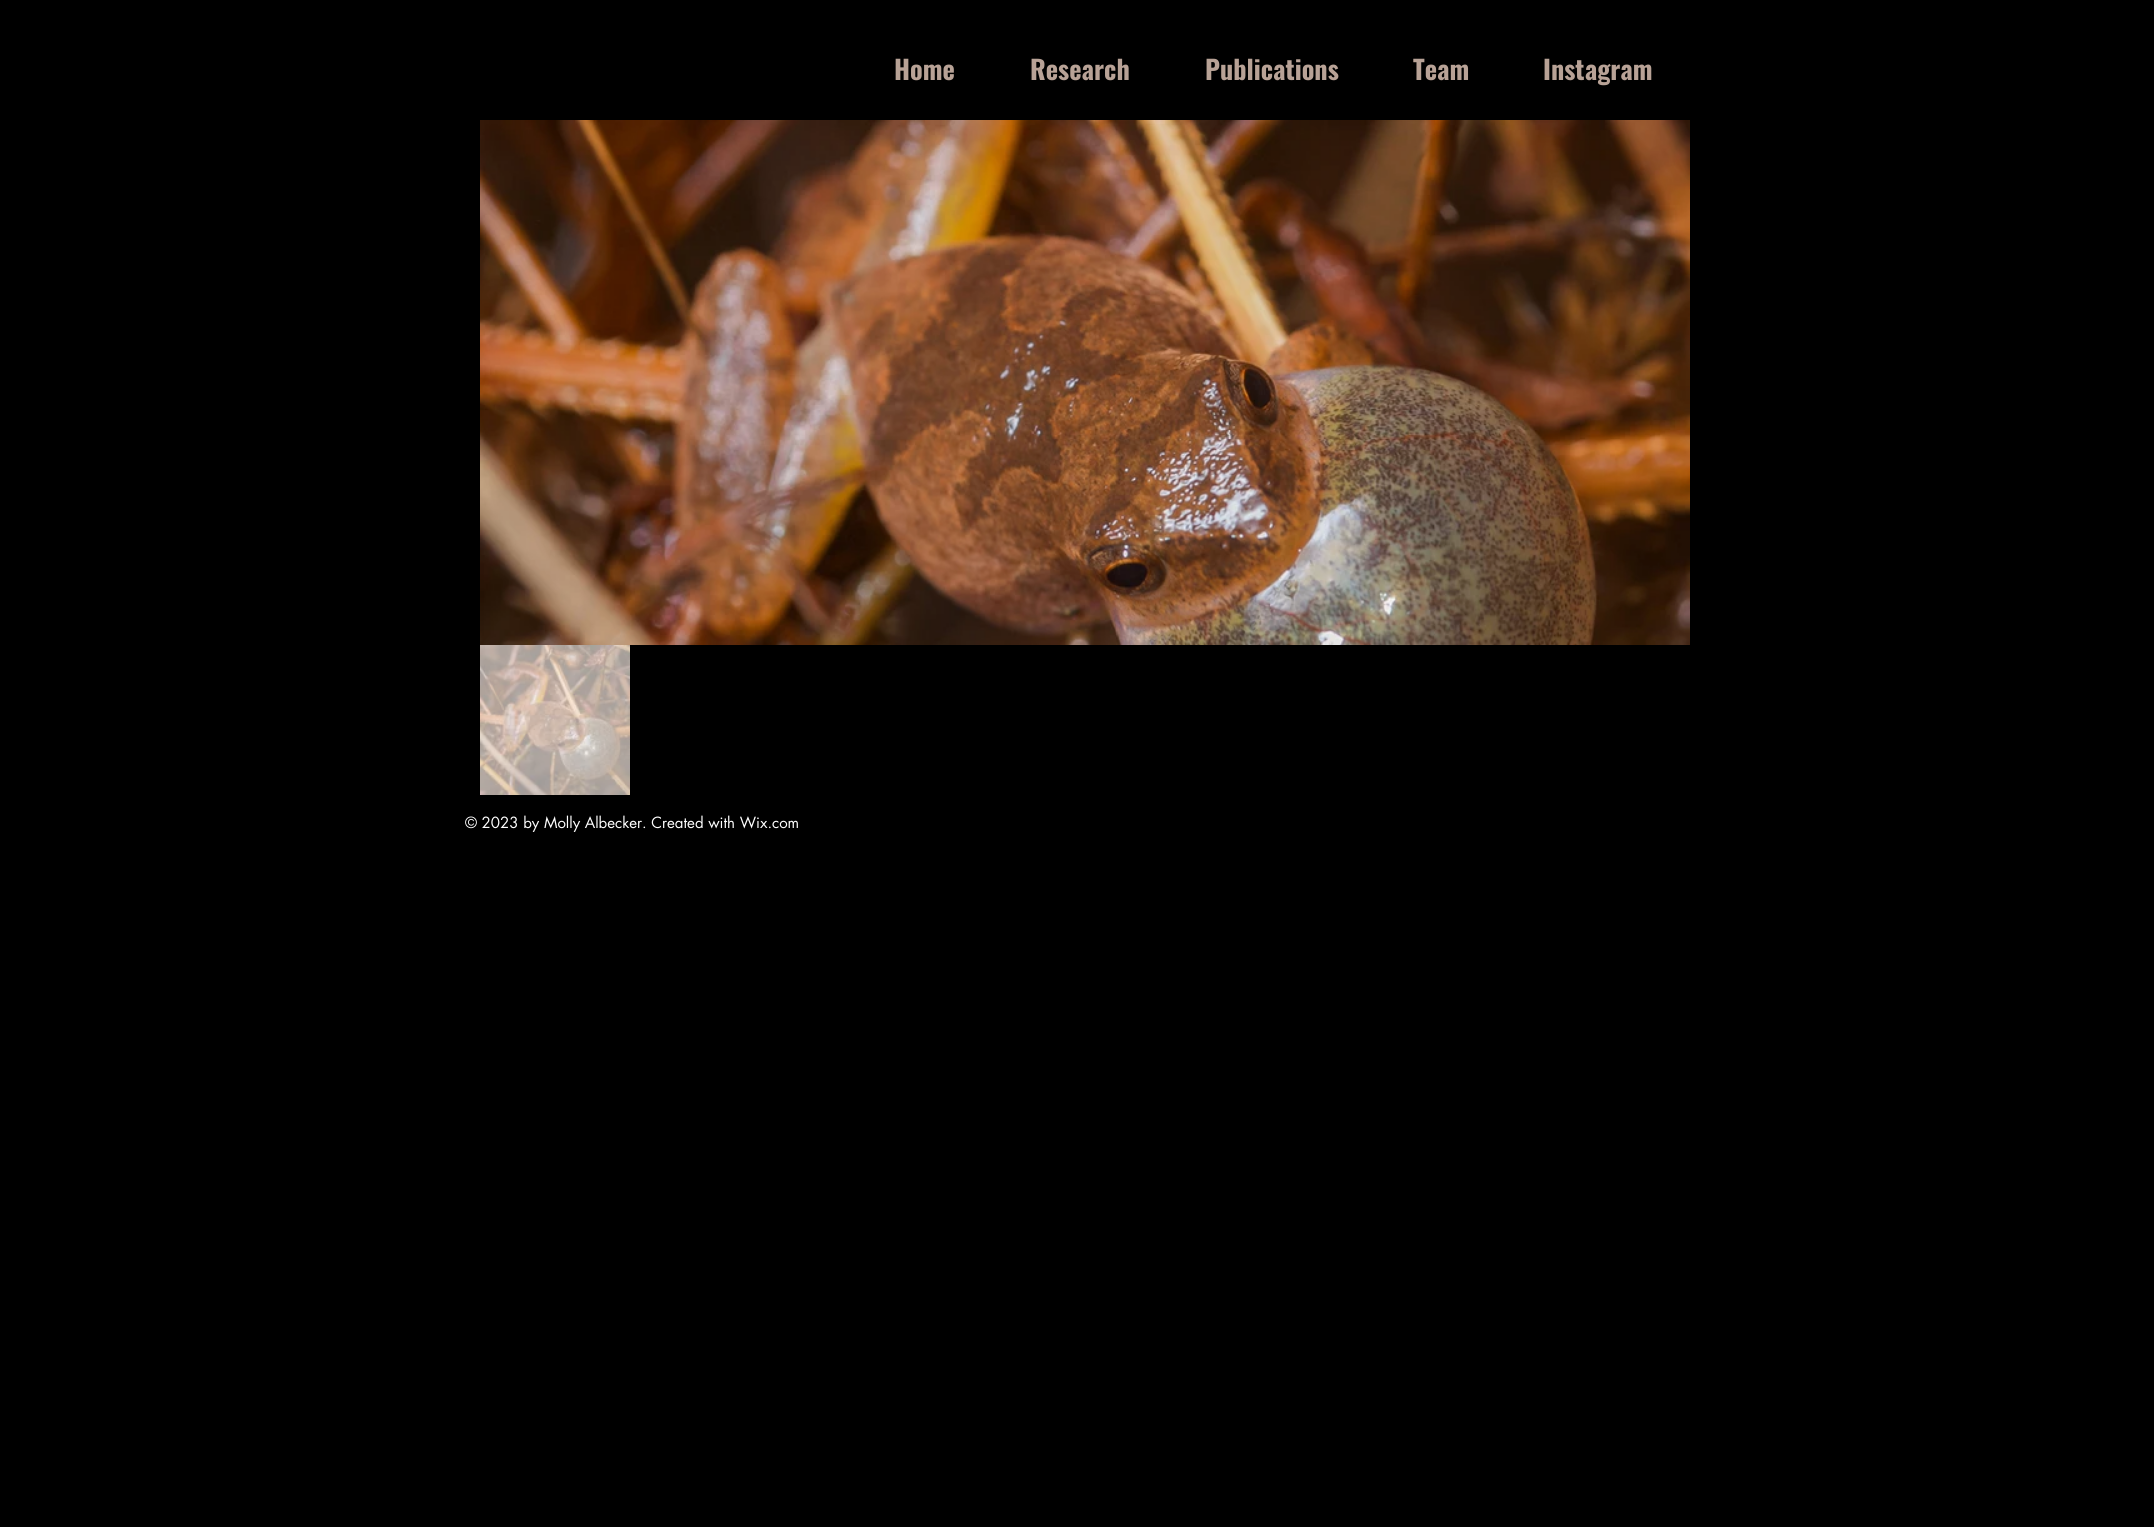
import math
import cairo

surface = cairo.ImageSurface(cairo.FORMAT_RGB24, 2154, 1527)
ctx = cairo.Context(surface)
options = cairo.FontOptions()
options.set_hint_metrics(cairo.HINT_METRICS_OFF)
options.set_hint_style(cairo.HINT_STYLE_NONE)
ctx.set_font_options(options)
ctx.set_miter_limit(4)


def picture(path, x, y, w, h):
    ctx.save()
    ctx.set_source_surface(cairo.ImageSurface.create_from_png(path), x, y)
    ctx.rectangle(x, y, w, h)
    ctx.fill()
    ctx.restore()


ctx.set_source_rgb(0, 0, 0)
ctx.paint()
ctx.select_font_face("Oswald", cairo.FONT_SLANT_NORMAL, cairo.FONT_WEIGHT_BOLD)
ctx.set_font_size(26.25)
ctx.set_source_rgb(0.722, 0.635, 0.588)
ctx.move_to(894, 80)
ctx.show_text("Home")
ctx.move_to(1030, 80)
ctx.show_text("Research")
ctx.move_to(1205, 80)
ctx.show_text("Publications")
ctx.move_to(1413, 80)
ctx.show_text("Team")
ctx.move_to(1543, 80)
ctx.show_text("Instagram")
picture("img1.png", 480, 120, 1210, 525)
picture("img2.png", 480, 645, 150, 150)
ctx.select_font_face("futura")
ctx.set_font_size(15)
ctx.set_source_rgb(1, 1, 1)
ctx.move_to(465, 828)
ctx.show_text("© 2023 by Molly Albecker. Created with Wix.com")
surface.write_to_png("page.png")
